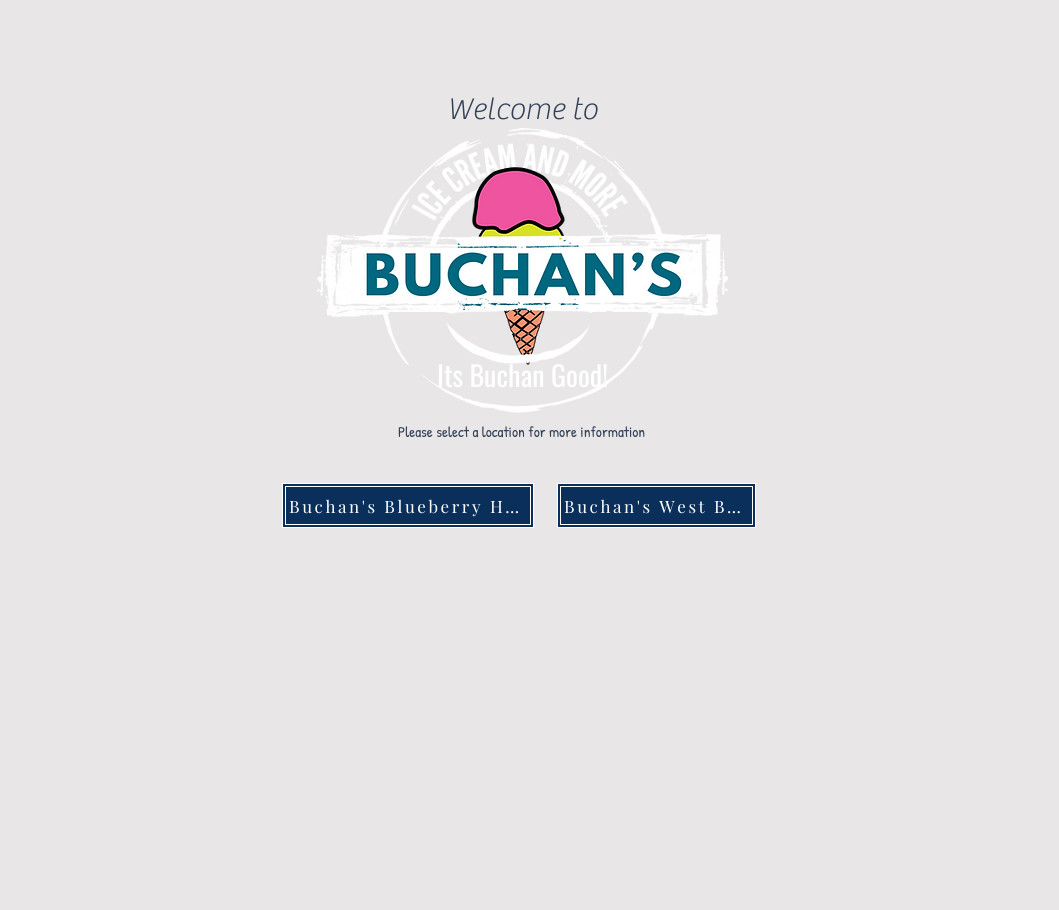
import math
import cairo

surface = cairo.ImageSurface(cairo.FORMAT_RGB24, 1059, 910)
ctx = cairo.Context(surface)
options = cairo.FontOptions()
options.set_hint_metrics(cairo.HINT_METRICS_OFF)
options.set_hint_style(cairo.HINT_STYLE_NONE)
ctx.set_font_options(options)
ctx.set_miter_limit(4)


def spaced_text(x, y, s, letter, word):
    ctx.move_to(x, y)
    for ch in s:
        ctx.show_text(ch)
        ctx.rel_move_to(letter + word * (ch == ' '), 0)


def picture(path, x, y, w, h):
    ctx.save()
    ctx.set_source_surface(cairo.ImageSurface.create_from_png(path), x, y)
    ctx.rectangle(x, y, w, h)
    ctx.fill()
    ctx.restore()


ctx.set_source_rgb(0.91, 0.902, 0.902)
ctx.paint()
ctx.select_font_face("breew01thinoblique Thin")
ctx.set_font_size(31)
ctx.set_source_rgb(0.196, 0.255, 0.345)
ctx.move_to(447, 119)
ctx.show_text("Welcome to")
ctx.select_font_face("Patrick Hand")
ctx.set_font_size(15)
ctx.move_to(398, 437)
ctx.show_text("Please select a location for more information")
picture("img1.png", 317, 128, 411, 285)
ctx.set_source_rgb(0.91, 0.902, 0.902)
ctx.new_path()
ctx.move_to(519, 365)
ctx.curve_to(478, 365, 445, 341, 445, 312)
ctx.line_to(389, 312)
ctx.curve_to(389, 364, 447, 406, 519, 406)
ctx.curve_to(590, 406, 648, 364, 648, 312)
ctx.line_to(592, 312)
ctx.curve_to(592, 341, 559, 365, 519, 365)
ctx.close_path()
ctx.fill()
ctx.select_font_face("Oswald")
ctx.set_font_size(28)
ctx.set_source_rgb(1, 1, 1)
ctx.move_to(437, 387)
ctx.show_text("Its Buchan Good!")
ctx.set_source_rgb(0.043, 0.184, 0.357)
ctx.rectangle(282.5, 483.5, 251, 44)
ctx.fill_preserve()
ctx.set_source_rgb(1, 1, 1)
ctx.set_line_width(1)
ctx.stroke()
ctx.rectangle(285.5, 486.5, 245, 38)
ctx.stroke()
ctx.select_font_face("Playfair Display")
ctx.set_font_size(17)
spaced_text(289, 513, "Buchan's Blueberry H…", 2.55, 0)
ctx.set_source_rgb(0.043, 0.184, 0.357)
ctx.rectangle(557.5, 483.5, 198, 44)
ctx.fill_preserve()
ctx.set_source_rgb(1, 1, 1)
ctx.stroke()
ctx.rectangle(560.5, 486.5, 192, 38)
ctx.stroke()
spaced_text(564, 513, "Buchan's West B…", 2.55, 0)
surface.write_to_png("page.png")
